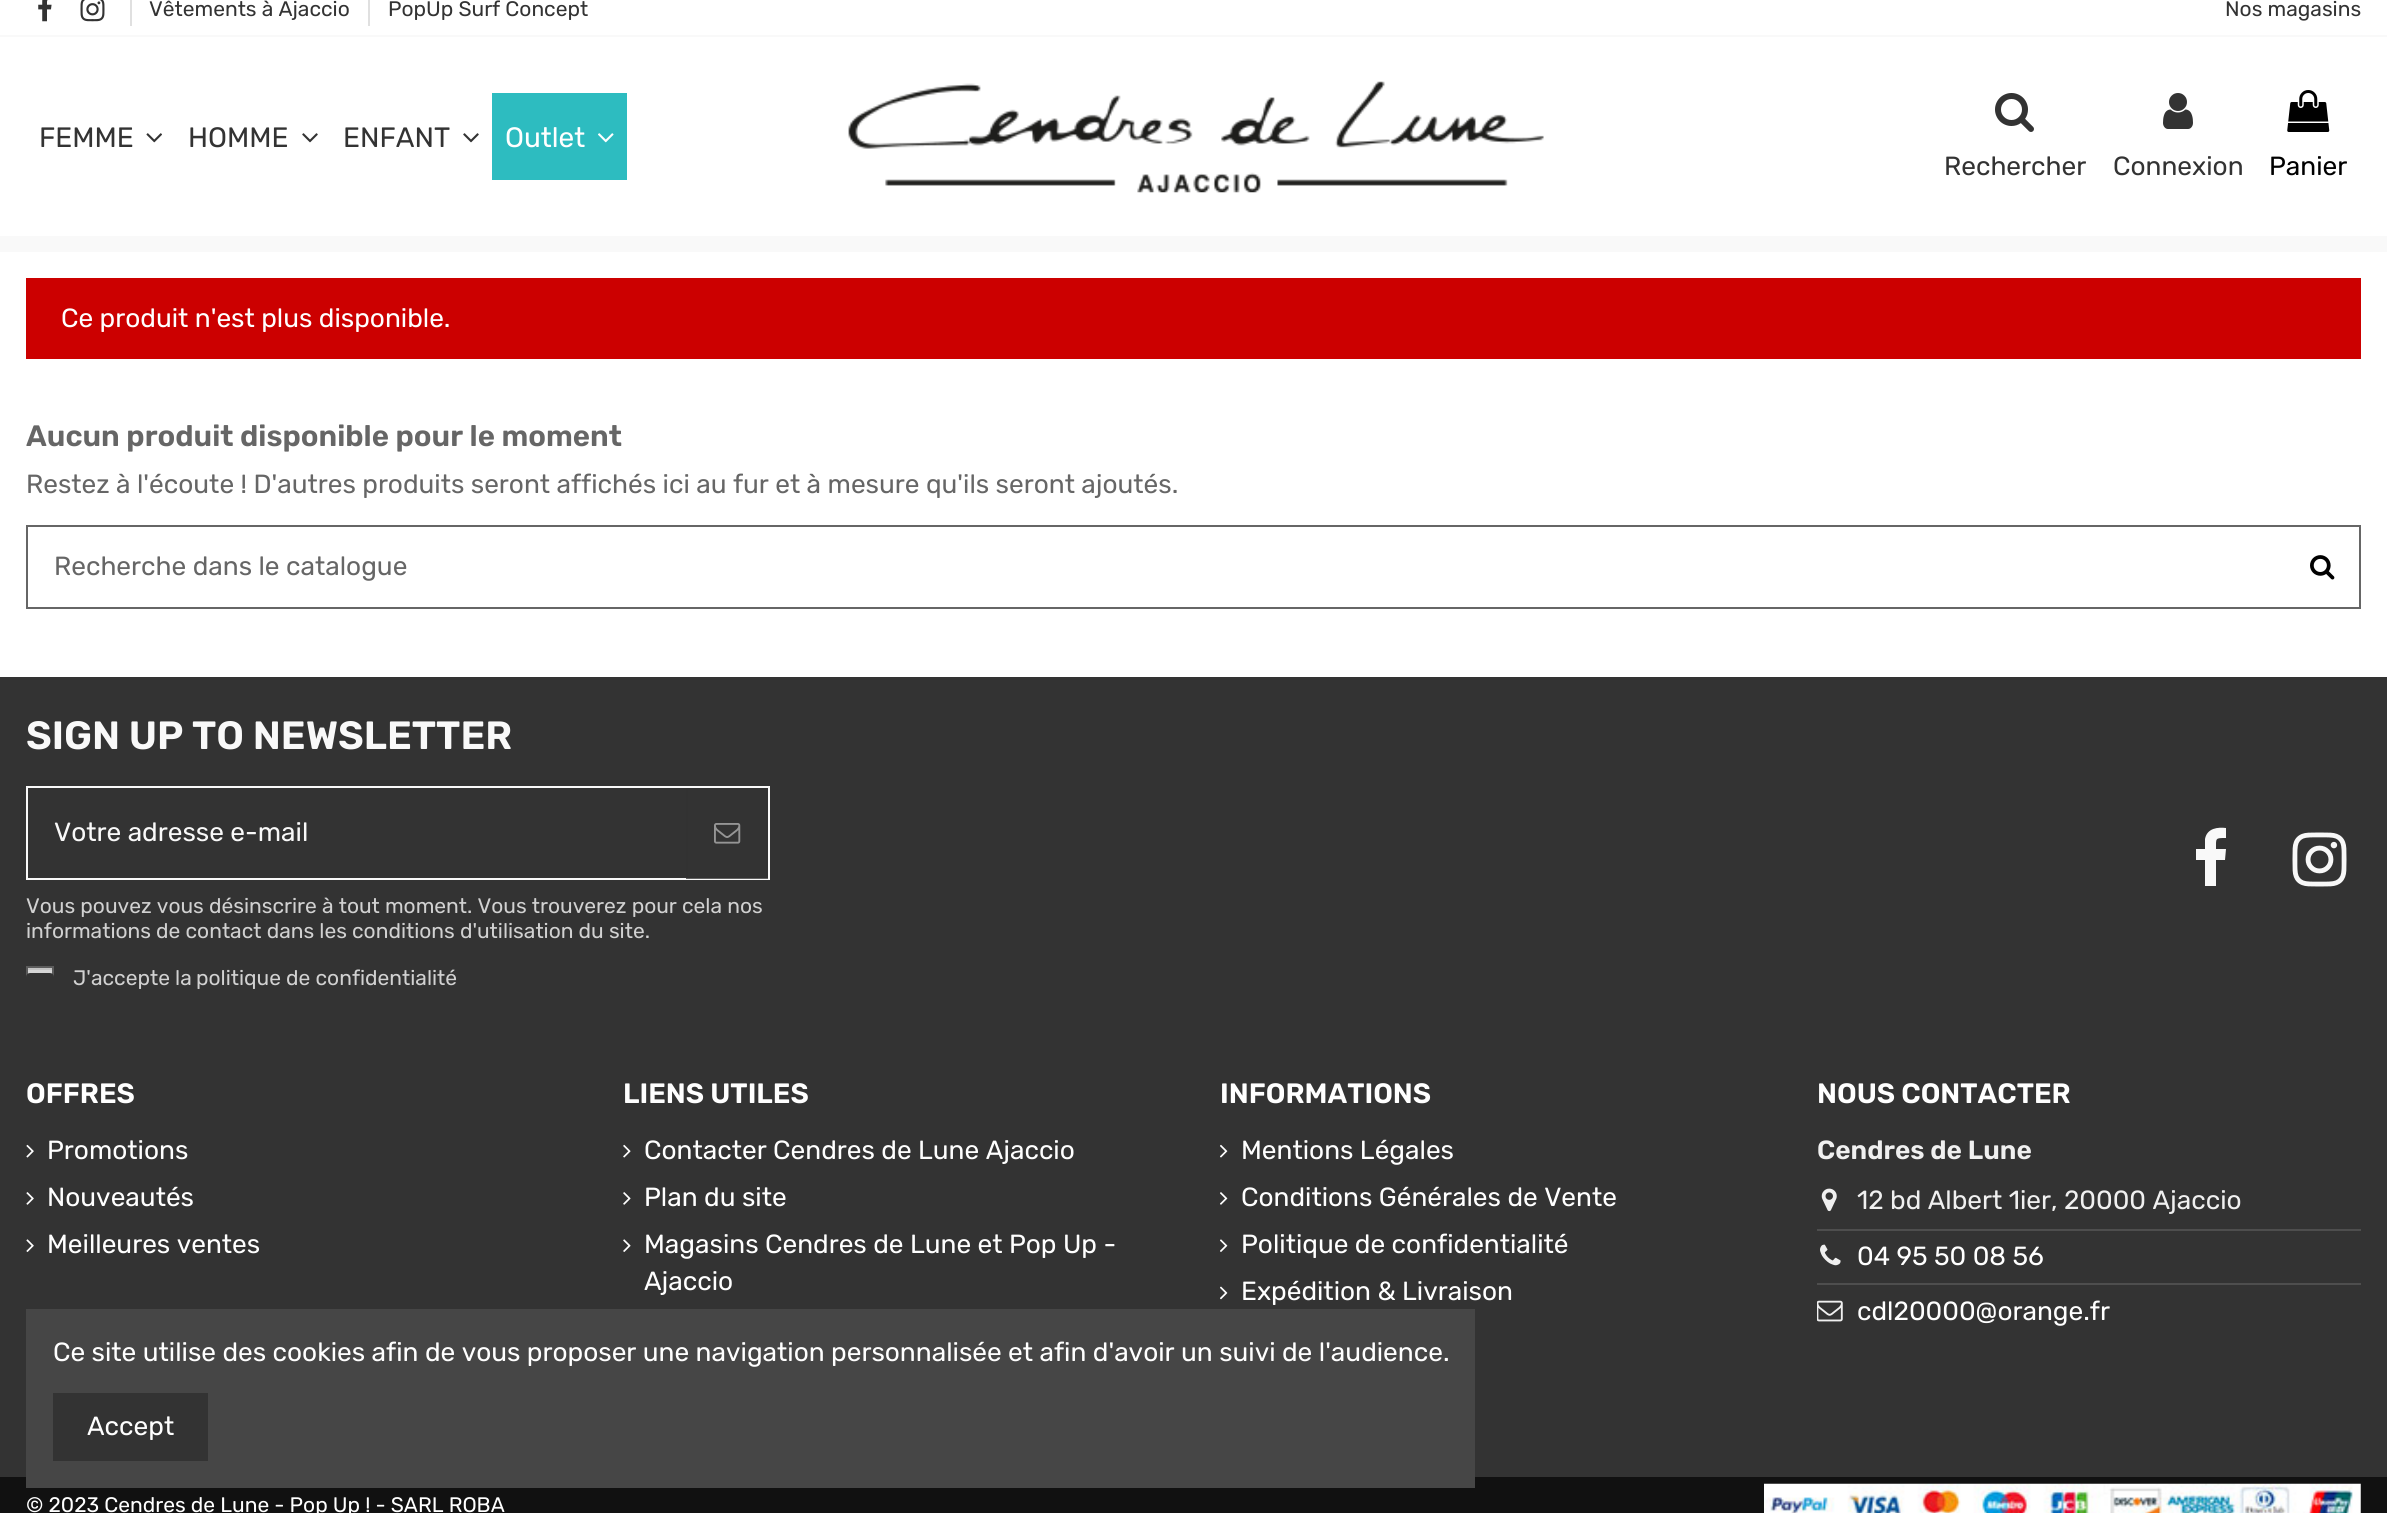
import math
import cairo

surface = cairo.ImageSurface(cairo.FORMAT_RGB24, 2387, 1513)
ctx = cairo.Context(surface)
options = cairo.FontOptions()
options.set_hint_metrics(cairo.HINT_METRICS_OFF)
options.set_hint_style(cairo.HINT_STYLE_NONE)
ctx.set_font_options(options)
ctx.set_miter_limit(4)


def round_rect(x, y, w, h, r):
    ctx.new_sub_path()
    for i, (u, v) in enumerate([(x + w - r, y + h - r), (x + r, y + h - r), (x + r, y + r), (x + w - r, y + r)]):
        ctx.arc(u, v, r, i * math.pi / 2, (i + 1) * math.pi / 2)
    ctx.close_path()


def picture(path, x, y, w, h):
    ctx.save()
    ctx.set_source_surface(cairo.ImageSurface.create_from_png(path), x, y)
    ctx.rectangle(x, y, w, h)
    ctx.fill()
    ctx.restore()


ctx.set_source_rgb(1, 1, 1)
ctx.paint()
ctx.set_source_rgb(0.973, 0.973, 0.973)
ctx.rectangle(0, 35, 2387, 2)
ctx.fill()
picture("img1.png", 38, 0, 14, 22)
picture("img2.png", 80, 0, 25, 22)
ctx.set_source_rgb(0.878, 0.878, 0.878)
ctx.rectangle(130, 0, 2, 26)
ctx.fill()
ctx.select_font_face("Rubik")
ctx.set_font_size(21)
ctx.set_source_rgb(0.2, 0.2, 0.2)
ctx.move_to(149, 16)
ctx.show_text("Vêtements à Ajaccio")
ctx.set_source_rgb(0.878, 0.878, 0.878)
ctx.rectangle(368, 0, 2, 26)
ctx.fill()
ctx.set_source_rgb(0.2, 0.2, 0.2)
ctx.move_to(388, 16)
ctx.show_text("PopUp Surf Concept")
ctx.move_to(2225, 16)
ctx.show_text("Nos magasins")
ctx.set_font_size(28)
ctx.move_to(39, 147)
ctx.show_text("FEMME")
picture("img3.png", 146, 133, 16, 10)
ctx.move_to(188, 147)
ctx.show_text("HOMME")
picture("img4.png", 302, 133, 16, 10)
ctx.move_to(343, 147)
ctx.show_text("ENFANT")
picture("img4.png", 463, 133, 16, 10)
ctx.set_source_rgb(0.176, 0.737, 0.753)
ctx.rectangle(492, 93, 135, 87)
ctx.fill()
ctx.set_source_rgb(1, 1, 1)
ctx.move_to(505, 147)
ctx.show_text("Outlet")
picture("img5.png", 598, 133, 16, 10)
picture("img6.png", 848, 81, 696, 112)
picture("img7.png", 1995, 93, 39, 39)
ctx.set_font_size(26.25)
ctx.set_source_rgb(0.2, 0.2, 0.2)
ctx.move_to(1944, 175)
ctx.show_text("Rechercher")
picture("img8.png", 2163, 93, 30, 36)
ctx.move_to(2113, 175)
ctx.show_text("Connexion")
picture("img9.png", 2287, 90, 43, 42)
ctx.set_source_rgb(0, 0, 0)
ctx.move_to(2269, 175)
ctx.show_text("Panier")
ctx.set_source_rgb(0.973, 0.973, 0.973)
ctx.rectangle(0, 236, 2387, 16)
ctx.fill()
ctx.set_source_rgb(0.8, 0, 0)
ctx.rectangle(26, 278, 2335, 81)
ctx.fill()
ctx.set_source_rgb(1, 1, 1)
ctx.move_to(61, 327)
ctx.show_text("Ce produit n'est plus disponible.")
ctx.select_font_face("Rubik SemiBold")
ctx.set_font_size(29.5)
ctx.set_source_rgb(0.4, 0.4, 0.4)
ctx.move_to(26, 446)
ctx.show_text("Aucun produit disponible pour le moment")
ctx.select_font_face("Rubik")
ctx.set_font_size(26.25)
ctx.move_to(26, 493)
ctx.show_text("Restez à l'écoute ! D'autres produits seront affichés ici au fur et à mesure qu'ils seront ajoutés.")
ctx.rectangle(27, 526, 2333, 82)
ctx.stroke()
ctx.move_to(54, 575)
ctx.show_text("Recherche dans le catalogue")
picture("img10.png", 2310, 555, 25, 25)
ctx.set_source_rgb(0.2, 0.2, 0.2)
ctx.rectangle(0, 677, 2387, 800)
ctx.fill()
ctx.select_font_face("Rubik SemiBold")
ctx.set_font_size(39.4)
ctx.set_source_rgb(0.973, 0.973, 0.973)
ctx.move_to(26, 749)
ctx.show_text("SIGN UP TO NEWSLETTER")
ctx.rectangle(27, 787, 742, 92)
ctx.stroke()
ctx.select_font_face("Rubik")
ctx.set_font_size(26.25)
ctx.move_to(54, 841)
ctx.show_text("Votre adresse e-mail")
ctx.set_source_rgba(0.2, 0.2, 0.2, 0.5)
ctx.rectangle(686, 878, 82, 1)
ctx.fill()
ctx.rectangle(687, 789, 80, 89)
ctx.stroke()
picture("img11.png", 714, 823, 27, 21)
ctx.set_font_size(21)
ctx.set_source_rgb(0.82, 0.82, 0.82)
ctx.move_to(26, 913)
ctx.show_text("Vous pouvez vous désinscrire à tout moment. Vous trouverez pour cela nos")
ctx.move_to(26, 938)
ctx.show_text("informations de contact dans les conditions d'utilisation du site.")
ctx.set_source_rgb(0.839, 0.839, 0.839)
ctx.rectangle(28, 970, 24, 4)
ctx.fill()
ctx.set_source_rgb(0.769, 0.769, 0.769)
ctx.rectangle(28, 968, 25, 2)
ctx.fill()
ctx.rectangle(27, 967, 26, 26)
ctx.set_source_rgb(0.361, 0.361, 0.361)
ctx.stroke()
ctx.set_source_rgb(0.82, 0.82, 0.82)
ctx.move_to(73, 985)
ctx.show_text("J'accepte la")
ctx.move_to(196, 985)
ctx.show_text("politique de confidentialité")
ctx.set_source_rgb(0.2, 0.2, 0.2)
round_rect(27, 974, 26, 26, 3)
ctx.fill_preserve()
ctx.stroke()
ctx.set_source_rgb(0.973, 0.973, 0.973)
ctx.new_path()
ctx.move_to(2226, 828)
ctx.line_to(2226, 838)
ctx.curve_to(2215, 838, 2216, 838, 2216, 849)
ctx.line_to(2226, 849)
ctx.line_to(2225, 860)
ctx.line_to(2216, 860)
ctx.line_to(2216, 886)
ctx.line_to(2205, 886)
ctx.line_to(2205, 860)
ctx.line_to(2196, 860)
ctx.line_to(2196, 849)
ctx.line_to(2205, 849)
ctx.line_to(2205, 839)
ctx.curve_to(2207, 828, 2218, 827, 2226, 828)
ctx.close_path()
ctx.fill()
picture("img12.png", 2292, 832, 55, 55)
ctx.select_font_face("Rubik SemiBold")
ctx.set_font_size(28)
ctx.set_source_rgb(1, 1, 1)
ctx.move_to(26, 1103)
ctx.show_text("OFFRES")
picture("img13.png", 26, 1144, 8, 14)
ctx.select_font_face("Rubik")
ctx.set_font_size(26.25)
ctx.move_to(47, 1159)
ctx.show_text("Promotions")
picture("img14.png", 26, 1192, 8, 13)
ctx.move_to(47, 1206)
ctx.show_text("Nouveautés")
picture("img15.png", 26, 1239, 8, 13)
ctx.move_to(47, 1253)
ctx.show_text("Meilleures ventes")
ctx.select_font_face("Rubik SemiBold")
ctx.set_font_size(28)
ctx.move_to(623, 1103)
ctx.show_text("LIENS UTILES")
picture("img16.png", 623, 1144, 8, 14)
ctx.select_font_face("Rubik")
ctx.set_font_size(26.25)
ctx.move_to(644, 1159)
ctx.show_text("Contacter Cendres de Lune Ajaccio")
picture("img17.png", 623, 1192, 8, 13)
ctx.move_to(644, 1206)
ctx.show_text("Plan du site")
picture("img18.png", 623, 1239, 8, 13)
ctx.move_to(644, 1253)
ctx.show_text("Magasins Cendres de Lune et Pop Up -")
ctx.move_to(644, 1290)
ctx.show_text("Ajaccio")
ctx.select_font_face("Rubik SemiBold")
ctx.set_font_size(28)
ctx.move_to(1220, 1103)
ctx.show_text("INFORMATIONS")
picture("img19.png", 1220, 1144, 8, 14)
ctx.select_font_face("Rubik")
ctx.set_font_size(26.25)
ctx.move_to(1241, 1159)
ctx.show_text("Mentions Légales")
picture("img20.png", 1220, 1192, 8, 13)
ctx.move_to(1241, 1206)
ctx.show_text("Conditions Générales de Vente")
picture("img21.png", 1220, 1239, 8, 13)
ctx.move_to(1241, 1253)
ctx.show_text("Politique de confidentialité")
picture("img22.png", 1220, 1286, 8, 14)
ctx.move_to(1241, 1300)
ctx.show_text("Expédition & Livraison")
ctx.select_font_face("Rubik SemiBold")
ctx.set_font_size(28)
ctx.move_to(1817, 1103)
ctx.show_text("NOUS CONTACTER")
ctx.set_font_size(26.25)
ctx.set_source_rgb(0.941, 0.941, 0.941)
ctx.move_to(1817, 1159)
ctx.show_text("Cendres de Lune")
picture("img23.png", 1821, 1188, 16, 24)
ctx.select_font_face("Rubik")
ctx.move_to(1857, 1209)
ctx.show_text("12 bd Albert 1ier, 20000 Ajaccio")
ctx.set_source_rgb(0.306, 0.306, 0.306)
ctx.rectangle(1817, 1229, 544, 2)
ctx.fill()
picture("img24.png", 1820, 1244, 21, 22)
ctx.set_source_rgb(1, 1, 1)
ctx.move_to(1857, 1265)
ctx.show_text("04 95 50 08 56")
ctx.set_source_rgb(0.306, 0.306, 0.306)
ctx.rectangle(1817, 1283, 544, 2)
ctx.fill()
picture("img25.png", 1817, 1300, 26, 22)
ctx.set_source_rgb(1, 1, 1)
ctx.move_to(1857, 1320)
ctx.show_text("cdl20000@orange.fr")
ctx.set_source_rgb(0.067, 0.067, 0.067)
ctx.rectangle(0, 1477, 2387, 36)
ctx.fill()
ctx.set_font_size(21)
ctx.set_source_rgb(1, 1, 1)
ctx.move_to(26, 1512)
ctx.show_text("© 2023 Cendres de Lune - Pop Up ! - SARL ROBA")
picture("img26.png", 1764, 1483, 597, 30)
ctx.set_source_rgb(0.275, 0.275, 0.275)
ctx.rectangle(26, 1309, 1449, 179)
ctx.fill()
ctx.set_font_size(26.25)
ctx.set_source_rgb(1, 1, 1)
ctx.move_to(53, 1361)
ctx.show_text("Ce site utilise des cookies afin de vous proposer une navigation personnalisée et afin d'avoir un suivi de l'audience.")
ctx.set_source_rgb(0.2, 0.2, 0.2)
ctx.rectangle(53, 1393, 155, 68)
ctx.fill()
ctx.set_source_rgb(1, 1, 1)
ctx.move_to(87, 1435)
ctx.show_text("Accept")
surface.write_to_png("page.png")
